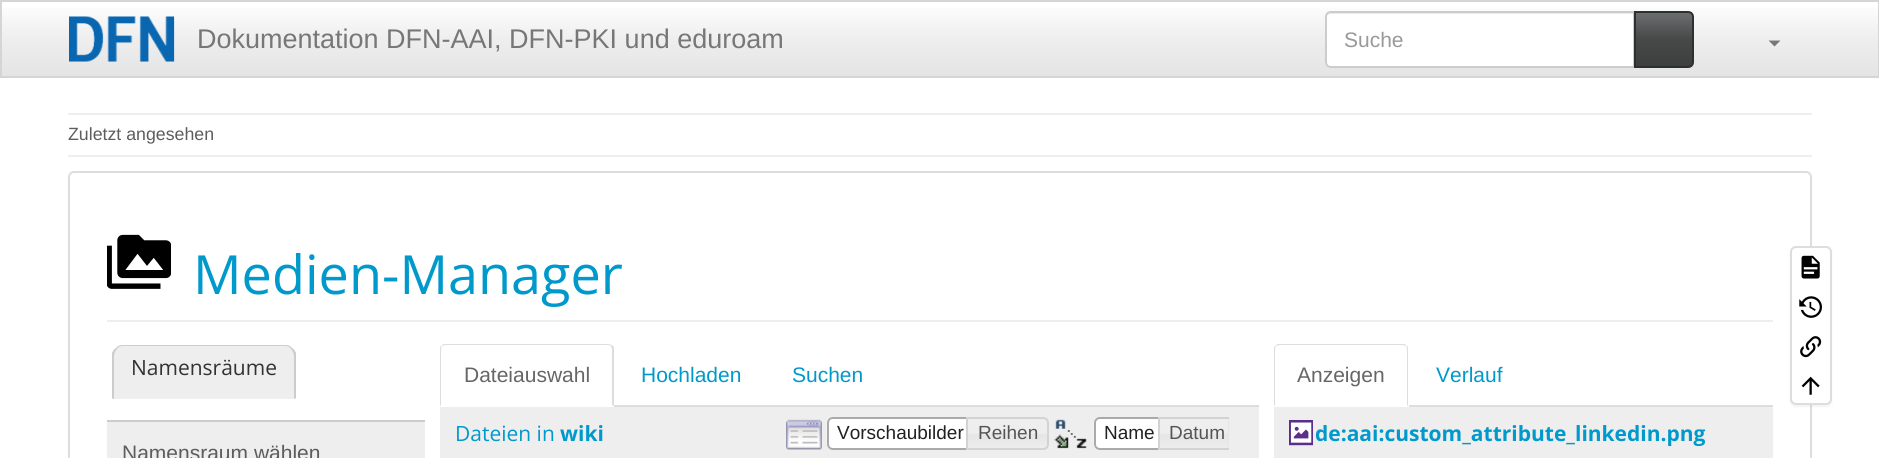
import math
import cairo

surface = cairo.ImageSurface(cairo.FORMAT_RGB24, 1879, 458)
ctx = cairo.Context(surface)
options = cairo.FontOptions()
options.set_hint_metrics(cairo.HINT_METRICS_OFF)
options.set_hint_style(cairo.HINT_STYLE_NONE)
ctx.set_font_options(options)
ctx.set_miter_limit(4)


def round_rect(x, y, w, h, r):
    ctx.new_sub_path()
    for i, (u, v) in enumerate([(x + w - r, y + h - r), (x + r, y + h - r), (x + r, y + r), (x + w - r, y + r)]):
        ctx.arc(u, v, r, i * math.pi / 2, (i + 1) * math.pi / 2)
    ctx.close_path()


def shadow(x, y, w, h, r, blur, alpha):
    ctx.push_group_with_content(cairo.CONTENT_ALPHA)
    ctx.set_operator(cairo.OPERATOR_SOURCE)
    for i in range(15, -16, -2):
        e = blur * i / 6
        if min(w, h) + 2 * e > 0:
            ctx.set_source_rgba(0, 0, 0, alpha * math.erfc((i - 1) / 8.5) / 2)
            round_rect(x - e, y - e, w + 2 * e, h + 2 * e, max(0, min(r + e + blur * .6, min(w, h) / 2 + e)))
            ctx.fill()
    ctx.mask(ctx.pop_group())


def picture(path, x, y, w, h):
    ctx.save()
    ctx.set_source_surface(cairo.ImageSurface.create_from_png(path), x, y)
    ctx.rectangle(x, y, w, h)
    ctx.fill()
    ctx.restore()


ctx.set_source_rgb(1, 1, 1)
ctx.paint()
gradient = cairo.LinearGradient(940, 1.5, 940, 77)
gradient.add_color_stop_rgba(0, 1, 1, 1, 1)
gradient.add_color_stop_rgba(0.5, 0.933, 0.933, 0.933, 1)
gradient.add_color_stop_rgba(1, 0.894, 0.894, 0.894, 1)
ctx.set_source(gradient)
ctx.rectangle(2, 7, 1876, 69)
ctx.fill()
ctx.rectangle(1, 1, 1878, 76)
ctx.set_source_rgb(0.835, 0.835, 0.835)
ctx.stroke()
picture("img1.png", 69, 16, 106, 46)
ctx.select_font_face("Liberation Sans")
ctx.set_font_size(27)
ctx.set_source_rgb(0.467, 0.467, 0.467)
ctx.move_to(197, 48)
ctx.show_text("Dokumentation DFN-AAI, DFN-PKI und eduroam")
ctx.set_source_rgb(1, 1, 1)
ctx.new_path()
ctx.move_to(1331, 11)
ctx.line_to(1635, 11)
ctx.line_to(1635, 68)
ctx.line_to(1331, 68)
ctx.curve_to(1327.5, 68, 1325, 65.5, 1325, 62)
ctx.line_to(1325, 17)
ctx.curve_to(1325, 13.5, 1327.5, 11, 1331, 11)
ctx.close_path()
ctx.fill()
ctx.set_source_rgb(0.925, 0.925, 0.925)
ctx.new_path()
ctx.move_to(1330, 14)
ctx.line_to(1634, 14)
ctx.line_to(1634, 12)
ctx.line_to(1331, 12)
ctx.curve_to(1328, 12, 1326, 15, 1326, 18)
ctx.curve_to(1326, 16, 1328, 14, 1330, 14)
ctx.close_path()
ctx.fill()
ctx.new_path()
ctx.move_to(1331, 12)
ctx.line_to(1634, 12)
ctx.line_to(1634, 67)
ctx.line_to(1331, 67)
ctx.curve_to(1328, 67, 1326, 65, 1326, 62)
ctx.line_to(1326, 17)
ctx.curve_to(1326, 14, 1328, 12, 1331, 12)
ctx.close_path()
ctx.set_source_rgb(0.8, 0.8, 0.8)
ctx.stroke()
ctx.set_font_size(21)
ctx.set_source_rgb(0.6, 0.6, 0.6)
ctx.move_to(1344, 47)
ctx.show_text("Suche")
gradient = cairo.LinearGradient(1664, 12, 1664, 66)
gradient.add_color_stop_rgba(0, 0.427, 0.439, 0.439, 1)
gradient.add_color_stop_rgba(0.5, 0.278, 0.286, 0.286, 1)
gradient.add_color_stop_rgba(1, 0.239, 0.247, 0.247, 1)
ctx.set_source(gradient)
ctx.rectangle(1636, 12, 56, 54)
ctx.fill()
ctx.new_path()
ctx.move_to(1635, 12)
ctx.line_to(1688, 12)
ctx.curve_to(1691, 12, 1693, 14, 1693, 17)
ctx.line_to(1693, 62)
ctx.curve_to(1693, 65, 1691, 67, 1688, 67)
ctx.line_to(1635, 67)
ctx.close_path()
ctx.set_source_rgb(0.18, 0.184, 0.184)
ctx.stroke()
ctx.set_source_rgb(0.467, 0.467, 0.467)
ctx.new_path()
ctx.move_to(1768.5, 40.5)
ctx.line_to(1780.5, 40.5)
ctx.line_to(1774.5, 46.5)
ctx.close_path()
ctx.fill()
ctx.set_source_rgb(0.933, 0.933, 0.933)
ctx.rectangle(68, 113, 1744, 2)
ctx.fill()
ctx.set_font_size(17.75)
ctx.set_source_rgb(0.365, 0.365, 0.365)
ctx.move_to(68, 140)
ctx.show_text("Zuletzt angesehen")
ctx.set_source_rgb(0.933, 0.933, 0.933)
ctx.rectangle(68, 155, 1744, 2)
ctx.fill()
round_rect(69, 172, 1742, 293, 5)
ctx.set_source_rgb(0.867, 0.867, 0.867)
ctx.stroke()
ctx.set_source_rgb(0.933, 0.933, 0.933)
ctx.rectangle(107, 320, 1666, 2)
ctx.fill()
picture("img2.png", 107, 234, 64, 55)
ctx.select_font_face("Open Sans")
ctx.set_font_size(54)
ctx.set_source_rgb(0, 0.6, 0.8)
ctx.move_to(193, 294)
ctx.show_text("Medien-Manager")
ctx.set_source_rgb(0.933, 0.933, 0.933)
ctx.new_path()
ctx.move_to(124, 345)
ctx.line_to(285, 345)
ctx.curve_to(291, 345, 296, 350, 296, 356)
ctx.line_to(296, 399)
ctx.line_to(113, 399)
ctx.line_to(113, 356)
ctx.curve_to(113, 350, 118, 345, 124, 345)
ctx.close_path()
ctx.fill()
ctx.set_source_rgb(0.8, 0.8, 0.8)
ctx.new_path()
ctx.move_to(123, 345)
ctx.curve_to(120, 345, 117, 346, 116, 348)
ctx.line_to(117, 349)
ctx.curve_to(118, 347, 120, 346, 123, 346)
ctx.line_to(285, 346)
ctx.curve_to(288, 346, 290, 347, 291, 349)
ctx.line_to(292, 348)
ctx.curve_to(291, 346, 288, 345, 285, 345)
ctx.close_path()
ctx.fill()
ctx.new_path()
ctx.move_to(296, 353)
ctx.line_to(296, 399)
ctx.line_to(294, 398)
ctx.line_to(294, 356)
ctx.curve_to(294, 354, 293, 351, 291, 349)
ctx.line_to(292, 348)
ctx.curve_to(294, 349, 295, 351, 296, 353)
ctx.close_path()
ctx.fill()
ctx.set_source_rgb(0.933, 0.933, 0.933)
ctx.new_path()
ctx.move_to(296, 399)
ctx.line_to(294, 398)
ctx.line_to(114, 398)
ctx.line_to(112, 399)
ctx.close_path()
ctx.fill()
ctx.set_source_rgb(0.8, 0.8, 0.8)
ctx.new_path()
ctx.move_to(112, 399)
ctx.line_to(112, 353)
ctx.curve_to(113, 351, 114, 349, 116, 348)
ctx.line_to(117, 349)
ctx.curve_to(115, 351, 114, 354, 114, 356)
ctx.line_to(114, 398)
ctx.close_path()
ctx.fill()
ctx.set_font_size(21)
ctx.set_source_rgb(0.2, 0.2, 0.2)
ctx.move_to(131, 375)
ctx.show_text("Namensräume")
ctx.set_source_rgb(0.933, 0.933, 0.933)
ctx.rectangle(107, 422, 318, 36)
ctx.fill()
ctx.set_source_rgb(0.8, 0.8, 0.8)
ctx.rectangle(107, 420, 318, 2)
ctx.fill()
ctx.select_font_face("Liberation Sans")
ctx.set_source_rgb(0.365, 0.365, 0.365)
ctx.move_to(122, 460)
ctx.show_text("Namensraum wählen")
ctx.set_source_rgb(0.867, 0.867, 0.867)
ctx.rectangle(614, 405, 645, 2)
ctx.fill()
ctx.new_path()
ctx.move_to(446, 344)
ctx.curve_to(444, 344, 442, 344, 442, 346)
ctx.line_to(445, 345)
ctx.line_to(608, 345)
ctx.line_to(611, 346)
ctx.line_to(612, 345)
ctx.line_to(608, 344)
ctx.close_path()
ctx.fill()
ctx.new_path()
ctx.move_to(612, 345)
ctx.line_to(614, 347)
ctx.line_to(614, 406)
ctx.line_to(612, 405)
ctx.line_to(612, 350)
ctx.curve_to(612, 348, 611, 347, 611, 346)
ctx.close_path()
ctx.fill()
ctx.new_path()
ctx.move_to(442, 346)
ctx.curve_to(440, 346, 440, 348, 440, 350)
ctx.line_to(440, 406)
ctx.line_to(441, 405)
ctx.line_to(441, 350)
ctx.curve_to(441, 348, 442, 347, 442, 346)
ctx.close_path()
ctx.fill()
ctx.set_source_rgb(0.4, 0.4, 0.4)
ctx.move_to(464, 382)
ctx.show_text("Dateiauswahl")
ctx.set_source_rgb(0, 0.6, 0.8)
ctx.move_to(641, 382)
ctx.show_text("Hochladen")
ctx.move_to(792, 382)
ctx.show_text("Suchen")
ctx.set_source_rgb(0.933, 0.933, 0.933)
ctx.rectangle(440, 407, 819, 51)
ctx.fill()
ctx.select_font_face("Open Sans")
ctx.set_source_rgb(0, 0.6, 0.8)
ctx.move_to(455, 441)
ctx.show_text("Dateien in")
ctx.select_font_face("Open Sans", cairo.FONT_SLANT_NORMAL, cairo.FONT_WEIGHT_BOLD)
ctx.move_to(560, 441)
ctx.show_text("wiki")
picture("img3.png", 786, 419, 36, 31)
ctx.set_source_rgb(1, 1, 1)
ctx.new_path()
ctx.move_to(833, 417)
ctx.line_to(974, 417)
ctx.line_to(974, 450)
ctx.line_to(833, 450)
ctx.curve_to(829.5, 450, 827, 447.5, 827, 444)
ctx.line_to(827, 423)
ctx.curve_to(827, 419.5, 829.5, 417, 833, 417)
ctx.close_path()
ctx.fill()
picture("img4.png", 826, 417, 5, 33)
ctx.new_path()
ctx.move_to(833, 418)
ctx.line_to(973, 418)
ctx.line_to(973, 449)
ctx.line_to(833, 449)
ctx.curve_to(830, 449, 828, 447, 828, 444)
ctx.line_to(828, 423)
ctx.curve_to(828, 420, 830, 418, 833, 418)
ctx.close_path()
ctx.set_source_rgb(0.667, 0.667, 0.667)
ctx.stroke()
ctx.select_font_face("Liberation Sans")
ctx.set_font_size(19)
ctx.set_source_rgb(0.129, 0.129, 0.129)
ctx.move_to(837, 439)
ctx.show_text("Vorschaubilder")
picture("img5.png", 968, 417, 80, 33)
ctx.new_path()
ctx.move_to(967, 418)
ctx.line_to(1043, 418)
ctx.curve_to(1046, 418, 1048, 420, 1048, 423)
ctx.line_to(1048, 444)
ctx.curve_to(1048, 447, 1046, 449, 1043, 449)
ctx.line_to(967, 449)
ctx.close_path()
ctx.set_source_rgb(0.827, 0.827, 0.827)
ctx.stroke()
ctx.set_source_rgb(0.333, 0.333, 0.333)
ctx.move_to(978, 439)
ctx.show_text("Reihen")
picture("img6.png", 1054, 419, 33, 30)
ctx.set_source_rgb(1, 1, 1)
ctx.new_path()
ctx.move_to(1100, 417)
ctx.line_to(1166, 417)
ctx.line_to(1166, 450)
ctx.line_to(1100, 450)
ctx.curve_to(1096.5, 450, 1094, 447.5, 1094, 444)
ctx.line_to(1094, 423)
ctx.curve_to(1094, 419.5, 1096.5, 417, 1100, 417)
ctx.close_path()
ctx.fill()
picture("img4.png", 1093, 417, 5, 33)
ctx.new_path()
ctx.move_to(1100, 418)
ctx.line_to(1165, 418)
ctx.line_to(1165, 449)
ctx.line_to(1100, 449)
ctx.curve_to(1097, 449, 1095, 447, 1095, 444)
ctx.line_to(1095, 423)
ctx.curve_to(1095, 420, 1097, 418, 1100, 418)
ctx.close_path()
ctx.set_source_rgb(0.667, 0.667, 0.667)
ctx.stroke()
ctx.set_source_rgb(0.129, 0.129, 0.129)
ctx.move_to(1104, 439)
ctx.show_text("Name")
ctx.set_source_rgb(0.902, 0.902, 0.902)
ctx.rectangle(1228, 419, 1, 29)
ctx.fill()
picture("img7.png", 1160, 419, 68, 29)
ctx.save()
ctx.rectangle(774, 417, 455, 33)
ctx.clip()
ctx.new_path()
ctx.move_to(1159, 418)
ctx.line_to(1230, 418)
ctx.curve_to(1233, 418, 1235, 420, 1235, 423)
ctx.line_to(1235, 444)
ctx.curve_to(1235, 447, 1233, 449, 1230, 449)
ctx.line_to(1159, 449)
ctx.close_path()
ctx.set_source_rgb(0.827, 0.827, 0.827)
ctx.stroke()
ctx.restore()
ctx.set_source_rgb(0.333, 0.333, 0.333)
ctx.move_to(1169, 439)
ctx.show_text("Datum")
ctx.set_source_rgb(0.867, 0.867, 0.867)
ctx.rectangle(1409, 405, 364, 2)
ctx.fill()
ctx.new_path()
ctx.move_to(1280, 344)
ctx.curve_to(1278, 344, 1276, 344, 1276, 346)
ctx.curve_to(1277, 346, 1278, 345, 1280, 345)
ctx.line_to(1402, 345)
ctx.curve_to(1404, 345, 1405, 346, 1406, 346)
ctx.curve_to(1406, 344, 1404, 344, 1402, 344)
ctx.close_path()
ctx.fill()
ctx.new_path()
ctx.move_to(1408, 406)
ctx.line_to(1408, 350)
ctx.curve_to(1408, 348, 1408, 346, 1406, 346)
ctx.curve_to(1406, 347, 1407, 348, 1407, 350)
ctx.line_to(1407, 405)
ctx.close_path()
ctx.fill()
ctx.new_path()
ctx.move_to(1276, 346)
ctx.curve_to(1274, 346, 1274, 348, 1274, 350)
ctx.line_to(1274, 406)
ctx.line_to(1275, 405)
ctx.line_to(1275, 350)
ctx.curve_to(1275, 348, 1276, 347, 1276, 346)
ctx.close_path()
ctx.fill()
ctx.set_font_size(21)
ctx.set_source_rgb(0.4, 0.4, 0.4)
ctx.move_to(1297, 382)
ctx.show_text("Anzeigen")
ctx.set_source_rgb(0, 0.6, 0.8)
ctx.move_to(1436, 382)
ctx.show_text("Verlauf")
ctx.set_source_rgb(0.933, 0.933, 0.933)
ctx.rectangle(1274, 407, 499, 51)
ctx.fill()
picture("img8.png", 1289, 420, 24, 26)
ctx.select_font_face("Open Sans", cairo.FONT_SLANT_NORMAL, cairo.FONT_WEIGHT_BOLD)
ctx.set_source_rgb(0, 0.6, 0.8)
ctx.move_to(1315, 441)
ctx.show_text("de:aai:custom_attribute_linkedin.png")
ctx.set_source_rgb(0, 0, 0)
shadow(1790, 248, 42, 159, 6, 1, 0.05)
ctx.set_source_rgb(1, 1, 1)
round_rect(1791, 247, 40, 157, 5)
ctx.fill_preserve()
ctx.set_source_rgb(0.867, 0.867, 0.867)
ctx.stroke()
picture("img9.png", 1801, 255, 19, 24)
picture("img10.png", 1799, 296, 23, 22)
picture("img11.png", 1800, 336, 22, 22)
picture("img12.png", 1801, 376, 19, 19)
surface.write_to_png("page.png")
